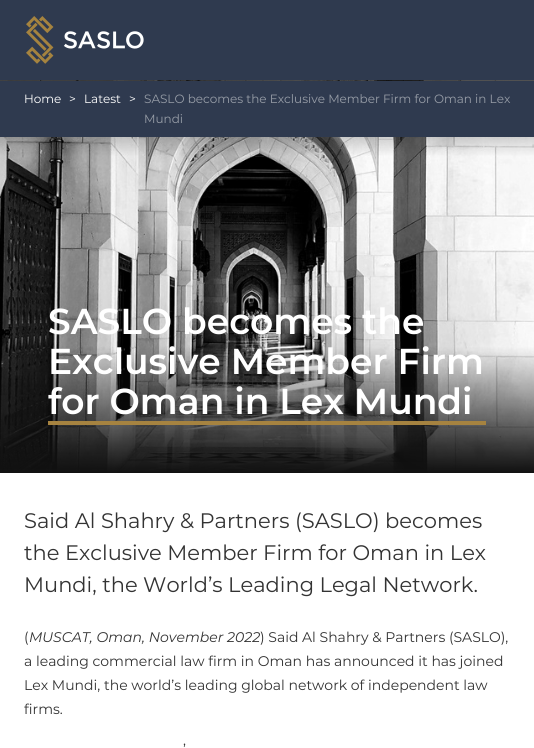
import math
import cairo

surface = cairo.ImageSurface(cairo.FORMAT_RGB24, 534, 748)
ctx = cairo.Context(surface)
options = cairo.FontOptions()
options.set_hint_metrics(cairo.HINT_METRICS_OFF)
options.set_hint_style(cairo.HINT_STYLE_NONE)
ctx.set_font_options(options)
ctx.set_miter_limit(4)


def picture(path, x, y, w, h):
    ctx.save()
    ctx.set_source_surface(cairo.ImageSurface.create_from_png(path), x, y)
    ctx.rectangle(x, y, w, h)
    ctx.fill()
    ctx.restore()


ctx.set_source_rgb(1, 1, 1)
ctx.paint()
ctx.set_source_rgb(0.184, 0.227, 0.31)
ctx.rectangle(0, 0, 534, 80)
ctx.fill()
picture("img1.png", 26, 16, 118, 48)
picture("img2.png", 0, 80, 534, 393)
ctx.rectangle(0, 81, 534, 56)
ctx.fill()
ctx.select_font_face("Montserrat")
ctx.set_font_size(12)
ctx.set_source_rgb(1, 1, 1)
ctx.move_to(24, 103)
ctx.show_text("Home")
ctx.move_to(69, 103)
ctx.show_text(">")
ctx.move_to(84, 103)
ctx.show_text("Latest")
ctx.move_to(129, 103)
ctx.show_text(">")
ctx.set_source_rgb(0.592, 0.616, 0.655)
ctx.move_to(144, 103)
ctx.show_text("SASLO becomes the Exclusive Member Firm for Oman in Lex")
ctx.move_to(144, 123)
ctx.show_text("Mundi")
ctx.set_source_rgb(0.651, 0.514, 0.251)
ctx.rectangle(48, 421, 438, 4)
ctx.fill()
ctx.select_font_face("Montserrat SemiBold")
ctx.set_font_size(36)
ctx.set_source_rgb(1, 1, 1)
ctx.move_to(48, 334)
ctx.show_text("SASLO becomes the")
ctx.move_to(48, 374)
ctx.show_text("Exclusive Member Firm")
ctx.move_to(48, 414)
ctx.show_text("for Oman in Lex Mundi")
ctx.select_font_face("Montserrat")
ctx.set_font_size(21)
ctx.set_source_rgb(0.2, 0.2, 0.2)
ctx.move_to(24, 528)
ctx.show_text("Said Al Shahry & Partners (SASLO) becomes")
ctx.move_to(24, 560)
ctx.show_text("the Exclusive Member Firm for Oman in Lex")
ctx.move_to(24, 592)
ctx.show_text("Mundi, the World’s Leading Legal Network.")
ctx.set_font_size(14)
ctx.move_to(24, 642)
ctx.show_text("(")
ctx.select_font_face("Montserrat", cairo.FONT_SLANT_ITALIC)
ctx.move_to(29, 642)
ctx.show_text("MUSCAT, Oman, November 2022")
ctx.select_font_face("Montserrat")
ctx.move_to(260, 642)
ctx.show_text(") Said Al Shahry & Partners (SASLO),")
ctx.move_to(24, 666)
ctx.show_text("a leading commercial law firm in Oman has announced it has joined")
ctx.move_to(24, 690)
ctx.show_text("Lex Mundi, the world’s leading global network of independent law")
ctx.move_to(24, 714)
ctx.show_text("firms.")
ctx.move_to(183, 754)
ctx.show_text("’")
surface.write_to_png("page.png")
